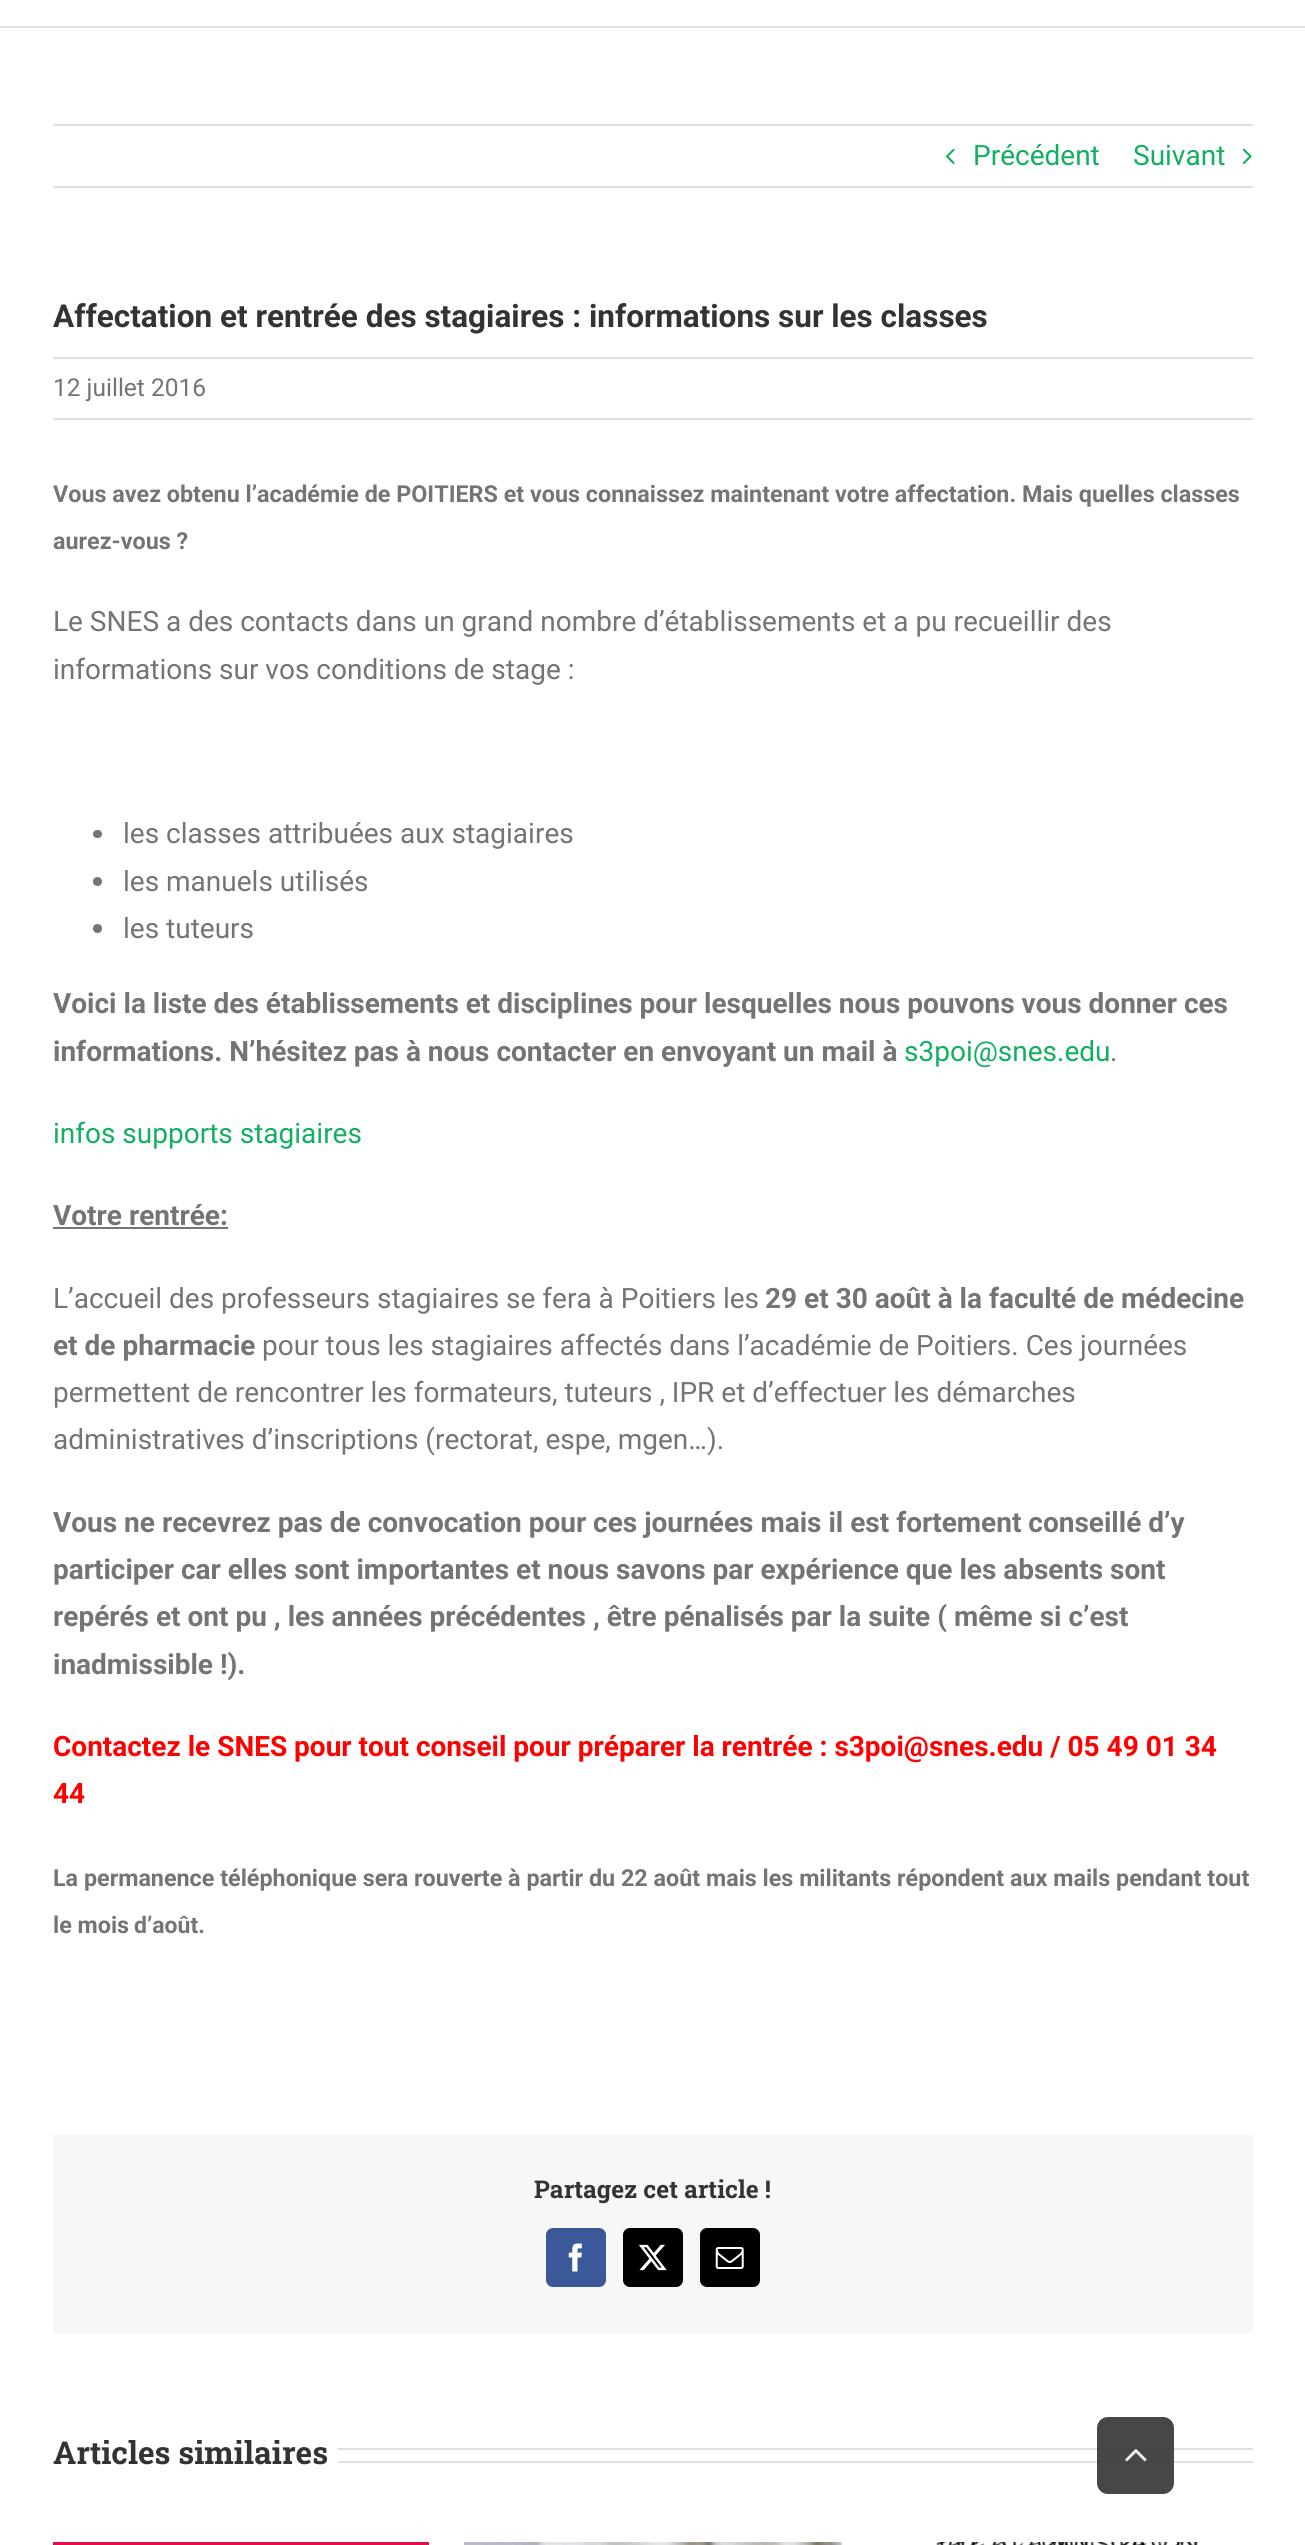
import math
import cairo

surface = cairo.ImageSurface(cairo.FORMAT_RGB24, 1305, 2545)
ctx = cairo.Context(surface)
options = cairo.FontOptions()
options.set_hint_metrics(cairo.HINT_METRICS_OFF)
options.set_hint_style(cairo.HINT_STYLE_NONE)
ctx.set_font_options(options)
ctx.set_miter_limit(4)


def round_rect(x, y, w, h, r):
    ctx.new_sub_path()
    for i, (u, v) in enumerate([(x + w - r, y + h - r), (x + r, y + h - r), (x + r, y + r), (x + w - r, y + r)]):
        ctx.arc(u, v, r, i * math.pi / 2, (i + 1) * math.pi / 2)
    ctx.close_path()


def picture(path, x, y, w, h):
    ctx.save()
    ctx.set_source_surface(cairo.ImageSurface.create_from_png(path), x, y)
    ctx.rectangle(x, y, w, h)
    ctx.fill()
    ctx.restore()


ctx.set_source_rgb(1, 1, 1)
ctx.paint()
ctx.set_source_rgb(0.882, 0.882, 0.882)
ctx.rectangle(0, 26, 1305, 2)
ctx.fill()
ctx.set_source_rgb(0.878, 0.871, 0.871)
ctx.rectangle(53, 124, 1200, 2)
ctx.fill()
ctx.rectangle(53, 186, 1200, 2)
ctx.fill()
picture("img1.png", 945, 148, 10, 17)
ctx.select_font_face("Roboto")
ctx.set_font_size(28)
ctx.set_source_rgb(0.078, 0.686, 0.38)
ctx.move_to(973, 165)
ctx.show_text("Précédent")
ctx.move_to(1133, 165)
ctx.show_text("Suivant")
picture("img2.png", 1242, 148, 10, 17)
ctx.select_font_face("Roboto", cairo.FONT_SLANT_NORMAL, cairo.FONT_WEIGHT_BOLD)
ctx.set_font_size(31.5)
ctx.set_source_rgb(0.2, 0.2, 0.2)
ctx.move_to(53, 327)
ctx.show_text("Affectation et rentrée des stagiaires : informations sur les classes")
ctx.set_source_rgb(0.878, 0.871, 0.871)
ctx.rectangle(53, 357, 1200, 2)
ctx.fill()
ctx.rectangle(53, 418, 1200, 2)
ctx.fill()
ctx.select_font_face("Roboto")
ctx.set_font_size(24.5)
ctx.set_source_rgb(0.455, 0.455, 0.455)
ctx.move_to(53, 396)
ctx.show_text("12 juillet 2016")
ctx.select_font_face("Roboto", cairo.FONT_SLANT_NORMAL, cairo.FONT_WEIGHT_BOLD)
ctx.set_font_size(23.33)
ctx.move_to(53, 502)
ctx.show_text("Vous avez obtenu l’académie de POITIERS et vous connaissez maintenant votre affectation. Mais quelles classes")
ctx.move_to(53, 549)
ctx.show_text("aurez-vous ?")
ctx.select_font_face("Roboto")
ctx.set_font_size(28)
ctx.move_to(53, 631)
ctx.show_text("Le SNES a des contacts dans un grand nombre d’établissements et a pu recueillir des")
ctx.move_to(53, 679)
ctx.show_text("informations sur vos conditions de stage :")
round_rect(93, 830, 9, 8, 4)
ctx.fill()
ctx.move_to(123, 843)
ctx.show_text("les classes attribuées aux stagiaires")
ctx.new_path()
ctx.arc(97.5, 881.5, 4.5, 0, 2 * math.pi)
ctx.fill()
ctx.move_to(123, 891)
ctx.show_text("les manuels utilisés")
ctx.new_path()
ctx.arc(97.5, 928.5, 4.5, 0, 2 * math.pi)
ctx.fill()
ctx.move_to(123, 938)
ctx.show_text("les tuteurs")
ctx.select_font_face("Roboto", cairo.FONT_SLANT_NORMAL, cairo.FONT_WEIGHT_BOLD)
ctx.move_to(53, 1013)
ctx.show_text("Voici la liste des établissements et disciplines pour lesquelles nous pouvons vous donner ces")
ctx.move_to(53, 1061)
ctx.show_text("informations. N’hésitez pas à nous contacter en envoyant un mail à")
ctx.select_font_face("Roboto")
ctx.set_source_rgb(0.078, 0.686, 0.38)
ctx.move_to(904, 1061)
ctx.show_text("s3poi@snes.edu")
ctx.set_source_rgb(0.455, 0.455, 0.455)
ctx.move_to(1110, 1061)
ctx.show_text(".")
ctx.set_source_rgb(0.078, 0.686, 0.38)
ctx.move_to(53, 1143)
ctx.show_text("infos supports stagiaires")
ctx.select_font_face("Roboto", cairo.FONT_SLANT_NORMAL, cairo.FONT_WEIGHT_BOLD)
ctx.set_source_rgb(0.455, 0.455, 0.455)
ctx.move_to(53, 1225)
ctx.show_text("Votre rentrée:")
ctx.rectangle(53, 1227, 175, 2)
ctx.fill()
ctx.select_font_face("Roboto")
ctx.move_to(53, 1308)
ctx.show_text("L’accueil des professeurs stagiaires se fera à Poitiers les")
ctx.select_font_face("Roboto", cairo.FONT_SLANT_NORMAL, cairo.FONT_WEIGHT_BOLD)
ctx.move_to(765, 1308)
ctx.show_text("29 et 30 août à la faculté de médecine")
ctx.move_to(53, 1355)
ctx.show_text("et de pharmacie")
ctx.select_font_face("Roboto")
ctx.move_to(262, 1355)
ctx.show_text("pour tous les stagiaires affectés dans l’académie de Poitiers. Ces journées")
ctx.move_to(53, 1402)
ctx.show_text("permettent de rencontrer les formateurs, tuteurs , IPR et d’effectuer les démarches")
ctx.move_to(53, 1449)
ctx.show_text("administratives d’inscriptions (rectorat, espe, mgen…).")
ctx.select_font_face("Roboto", cairo.FONT_SLANT_NORMAL, cairo.FONT_WEIGHT_BOLD)
ctx.move_to(53, 1532)
ctx.show_text("Vous ne recevrez pas de convocation pour ces journées mais il est fortement conseillé d’y")
ctx.move_to(53, 1579)
ctx.show_text("participer car elles sont importantes et nous savons par expérience que les absents sont")
ctx.move_to(53, 1626)
ctx.show_text("repérés et ont pu , les années précédentes , être pénalisés par la suite ( même si c’est")
ctx.move_to(53, 1674)
ctx.show_text("inadmissible !).")
ctx.set_source_rgb(1, 0, 0)
ctx.move_to(53, 1756)
ctx.show_text("Contactez le SNES pour tout conseil pour préparer la rentrée : s3poi@snes.edu / 05 49 01 34")
ctx.move_to(53, 1803)
ctx.show_text("44")
ctx.set_font_size(23.33)
ctx.set_source_rgb(0.455, 0.455, 0.455)
ctx.move_to(53, 1886)
ctx.show_text("La permanence téléphonique sera rouverte à partir du 22 août mais les militants répondent aux mails pendant tout")
ctx.move_to(53, 1933)
ctx.show_text("le mois")
ctx.set_font_size(23)
ctx.move_to(134, 1933)
ctx.show_text("d’août.")
ctx.set_source_rgb(0.965, 0.965, 0.965)
ctx.rectangle(53, 2135, 1200, 198)
ctx.fill()
ctx.select_font_face("Roboto Slab", cairo.FONT_SLANT_NORMAL, cairo.FONT_WEIGHT_BOLD)
ctx.set_font_size(24.5)
ctx.set_source_rgb(0.2, 0.2, 0.2)
ctx.move_to(534, 2198)
ctx.show_text("Partagez cet article !")
ctx.set_source_rgb(0.231, 0.349, 0.596)
round_rect(547, 2229, 58, 57, 6)
ctx.fill_preserve()
ctx.stroke()
picture("img3.png", 568, 2243, 14, 29)
ctx.set_source_rgb(0, 0, 0)
round_rect(624, 2229, 58, 57, 6)
ctx.fill_preserve()
ctx.stroke()
picture("img4.png", 638, 2244, 29, 27)
round_rect(701, 2229, 58, 57, 6)
ctx.fill_preserve()
ctx.stroke()
picture("img5.png", 715, 2247, 29, 22)
ctx.set_font_size(31.5)
ctx.set_source_rgb(0.2, 0.2, 0.2)
ctx.move_to(53, 2464)
ctx.show_text("Articles similaires")
ctx.set_source_rgb(0.878, 0.871, 0.871)
ctx.rectangle(338, 2448, 915, 2)
ctx.fill()
ctx.rectangle(338, 2461, 915, 2)
ctx.fill()
ctx.set_source_rgb(0.89, 0.059, 0.29)
ctx.rectangle(53, 2542, 376, 3)
ctx.fill()
picture("img6.png", 464, 2542, 378, 3)
picture("img7.png", 936, 2542, 262, 3)
ctx.set_source_rgba(0.2, 0.2, 0.2, 0.9)
round_rect(1097, 2417, 77, 77, 11)
ctx.fill()
picture("img8.png", 1125, 2449, 22, 13)
surface.write_to_png("page.png")
